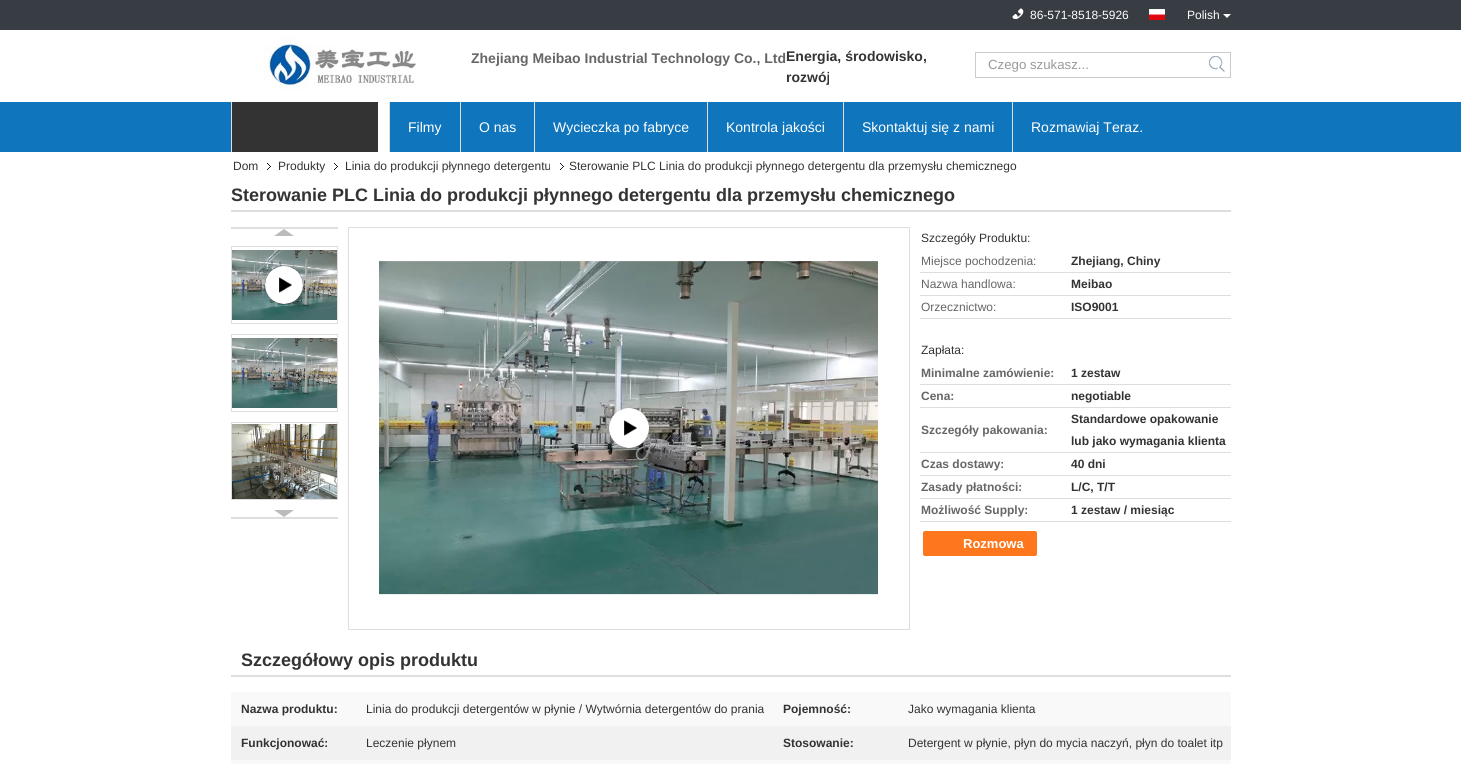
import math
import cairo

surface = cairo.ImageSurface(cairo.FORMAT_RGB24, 1461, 764)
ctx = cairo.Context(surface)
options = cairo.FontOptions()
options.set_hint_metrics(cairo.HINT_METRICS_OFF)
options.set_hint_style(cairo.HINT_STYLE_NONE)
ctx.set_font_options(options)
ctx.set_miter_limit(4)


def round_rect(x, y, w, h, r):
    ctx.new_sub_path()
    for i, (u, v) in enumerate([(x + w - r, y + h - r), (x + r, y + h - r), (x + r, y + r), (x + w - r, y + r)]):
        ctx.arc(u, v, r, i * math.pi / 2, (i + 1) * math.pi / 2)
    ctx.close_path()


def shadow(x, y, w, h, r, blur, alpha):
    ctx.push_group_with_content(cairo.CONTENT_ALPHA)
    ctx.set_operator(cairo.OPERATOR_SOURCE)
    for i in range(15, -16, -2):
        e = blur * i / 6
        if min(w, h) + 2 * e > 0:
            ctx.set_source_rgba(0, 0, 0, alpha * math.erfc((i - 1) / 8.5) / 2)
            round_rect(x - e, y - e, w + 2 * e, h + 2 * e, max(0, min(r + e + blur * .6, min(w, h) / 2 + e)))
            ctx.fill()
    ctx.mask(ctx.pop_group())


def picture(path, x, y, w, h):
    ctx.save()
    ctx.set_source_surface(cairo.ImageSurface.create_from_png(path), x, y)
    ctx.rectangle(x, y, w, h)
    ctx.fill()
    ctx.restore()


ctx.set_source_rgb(1, 1, 1)
ctx.paint()
ctx.set_source_rgb(0.216, 0.239, 0.263)
ctx.rectangle(0, 0, 1461, 30)
ctx.fill()
picture("img1.png", 1012, 8, 12, 11)
ctx.select_font_face("Liberation Sans")
ctx.set_font_size(12)
ctx.set_source_rgb(1, 1, 1)
ctx.move_to(1030, 19)
ctx.show_text("86-571-8518-5926")
picture("img2.png", 1149, 9, 16, 11)
ctx.move_to(1187, 19)
ctx.show_text("Polish")
ctx.new_path()
ctx.move_to(1223, 14)
ctx.line_to(1231, 14)
ctx.line_to(1227, 18)
ctx.close_path()
ctx.fill()
picture("img3.png", 264, 35, 152, 56)
ctx.select_font_face("Liberation Sans", cairo.FONT_SLANT_NORMAL, cairo.FONT_WEIGHT_BOLD)
ctx.set_font_size(14)
ctx.set_source_rgb(0.4, 0.4, 0.4)
ctx.move_to(471, 63)
ctx.show_text("Zhejiang Meibao Industrial Technology Co., Ltd")
ctx.set_source_rgb(0.2, 0.2, 0.2)
ctx.move_to(786, 61)
ctx.show_text("Energia, środowisko,")
ctx.move_to(786, 82)
ctx.show_text("rozwój")
ctx.set_source_rgb(0.8, 0.8, 0.8)
ctx.rectangle(975, 52, 256, 1)
ctx.fill()
ctx.rectangle(975, 77, 231, 1)
ctx.fill()
ctx.rectangle(975, 52, 1, 26)
ctx.fill()
ctx.select_font_face("Liberation Sans")
ctx.set_font_size(13.25)
ctx.set_source_rgb(0.6, 0.6, 0.6)
ctx.move_to(988, 69)
ctx.show_text("Czego szukasz...")
picture("img4.png", 1209, 56, 16, 16)
ctx.set_source_rgb(0.8, 0.8, 0.8)
ctx.rectangle(1230, 52, 1, 26)
ctx.fill()
ctx.rectangle(1206, 77, 25, 1)
ctx.fill()
ctx.set_source_rgb(0.059, 0.459, 0.741)
ctx.rectangle(0, 102, 1461, 50)
ctx.fill()
ctx.set_source_rgb(0.871, 0.871, 0.871)
ctx.rectangle(231, 102, 1, 50)
ctx.fill()
ctx.set_source_rgb(0.2, 0.2, 0.2)
ctx.rectangle(232, 102, 146, 50)
ctx.fill()
ctx.set_source_rgb(1, 1, 1)
ctx.rectangle(378, 102, 11, 50)
ctx.fill()
ctx.set_source_rgb(0.871, 0.871, 0.871)
ctx.rectangle(389, 102, 1, 50)
ctx.fill()
ctx.set_font_size(14)
ctx.set_source_rgb(1, 1, 1)
ctx.move_to(408, 132)
ctx.show_text("Filmy")
ctx.set_source_rgb(0.871, 0.871, 0.871)
ctx.rectangle(460, 102, 1, 50)
ctx.fill()
ctx.set_source_rgb(1, 1, 1)
ctx.move_to(479, 132)
ctx.show_text("O nas")
ctx.set_source_rgb(0.871, 0.871, 0.871)
ctx.rectangle(534, 102, 1, 50)
ctx.fill()
ctx.set_source_rgb(1, 1, 1)
ctx.move_to(553, 132)
ctx.show_text("Wycieczka po fabryce")
ctx.set_source_rgb(0.871, 0.871, 0.871)
ctx.rectangle(707, 102, 1, 50)
ctx.fill()
ctx.set_source_rgb(1, 1, 1)
ctx.move_to(726, 132)
ctx.show_text("Kontrola jakości")
ctx.set_source_rgb(0.871, 0.871, 0.871)
ctx.rectangle(843, 102, 1, 50)
ctx.fill()
ctx.set_source_rgb(1, 1, 1)
ctx.move_to(862, 132)
ctx.show_text("Skontaktuj się z nami")
ctx.set_source_rgb(0.871, 0.871, 0.871)
ctx.rectangle(1012, 102, 1, 50)
ctx.fill()
ctx.set_source_rgb(1, 1, 1)
ctx.move_to(1031, 132)
ctx.show_text("Rozmawiaj Teraz.")
ctx.set_font_size(12)
ctx.set_source_rgb(0.2, 0.2, 0.2)
ctx.move_to(233, 170)
ctx.show_text("Dom")
picture("img5.png", 267, 163, 4, 7)
ctx.move_to(278, 170)
ctx.show_text("Produkty")
picture("img5.png", 334, 163, 4, 7)
ctx.move_to(345, 170)
ctx.show_text("Linia do produkcji płynnego detergentu")
picture("img5.png", 560, 163, 4, 7)
ctx.move_to(569, 170)
ctx.show_text("Sterowanie PLC Linia do produkcji płynnego detergentu dla przemysłu chemicznego")
ctx.set_source_rgb(0.867, 0.867, 0.867)
ctx.rectangle(231, 210, 1000, 2)
ctx.fill()
ctx.select_font_face("Liberation Sans", cairo.FONT_SLANT_NORMAL, cairo.FONT_WEIGHT_BOLD)
ctx.set_font_size(18)
ctx.set_source_rgb(0.2, 0.2, 0.2)
ctx.move_to(231, 201)
ctx.show_text("Sterowanie PLC Linia do produkcji płynnego detergentu dla przemysłu chemicznego")
ctx.set_source_rgb(0.871, 0.871, 0.871)
ctx.rectangle(231, 227, 107, 2)
ctx.fill()
ctx.set_source_rgb(0.733, 0.733, 0.733)
ctx.new_path()
ctx.move_to(294, 236)
ctx.line_to(274, 236)
ctx.line_to(284, 229)
ctx.close_path()
ctx.fill()
ctx.rectangle(231.5, 246.5, 106, 77)
ctx.set_source_rgb(0.871, 0.871, 0.871)
ctx.set_line_width(1)
ctx.stroke()
picture("img6.png", 232, 250, 105, 70)
ctx.set_source_rgb(0, 0, 0)
ctx.arc(284, 285, 19, 0, 2 * math.pi)
ctx.fill()
picture("img7.png", 265, 266, 38, 38)
ctx.rectangle(231.5, 334.5, 106, 77)
ctx.set_source_rgb(0.871, 0.871, 0.871)
ctx.stroke()
picture("img8.png", 232, 338, 105, 70)
ctx.rectangle(231.5, 422.5, 106, 77)
ctx.stroke()
picture("img9.png", 232, 424, 105, 75)
ctx.rectangle(231, 517, 107, 2)
ctx.fill()
ctx.set_source_rgb(0.733, 0.733, 0.733)
ctx.new_path()
ctx.move_to(274, 510)
ctx.line_to(294, 510)
ctx.line_to(284, 517)
ctx.close_path()
ctx.fill()
ctx.rectangle(348.5, 227.5, 561, 402)
ctx.set_source_rgb(0.871, 0.871, 0.871)
ctx.stroke()
picture("img10.png", 379, 261, 499, 334)
ctx.set_source_rgb(0, 0, 0)
shadow(610, 410, 38, 38, 19, 2.5, 0.2)
ctx.set_source_rgb(0, 0, 0)
ctx.arc(629, 429, 19, 0, 2 * math.pi)
ctx.fill()
picture("img11.png", 609, 408, 40, 40)
ctx.select_font_face("Liberation Sans")
ctx.set_font_size(12)
ctx.set_source_rgb(0.2, 0.2, 0.2)
ctx.move_to(921, 242)
ctx.show_text("Szczegóły Produktu:")
ctx.set_source_rgb(0.4, 0.4, 0.4)
ctx.move_to(921, 265)
ctx.show_text("Miejsce pochodzenia:")
ctx.set_source_rgb(0.871, 0.871, 0.871)
ctx.rectangle(920, 272, 311, 1)
ctx.fill()
ctx.select_font_face("Liberation Sans", cairo.FONT_SLANT_NORMAL, cairo.FONT_WEIGHT_BOLD)
ctx.set_source_rgb(0.2, 0.2, 0.2)
ctx.move_to(1071, 265)
ctx.show_text("Zhejiang, Chiny")
ctx.select_font_face("Liberation Sans")
ctx.set_source_rgb(0.4, 0.4, 0.4)
ctx.move_to(921, 288)
ctx.show_text("Nazwa handlowa:")
ctx.set_source_rgb(0.871, 0.871, 0.871)
ctx.rectangle(920, 295, 311, 1)
ctx.fill()
ctx.select_font_face("Liberation Sans", cairo.FONT_SLANT_NORMAL, cairo.FONT_WEIGHT_BOLD)
ctx.set_source_rgb(0.2, 0.2, 0.2)
ctx.move_to(1071, 288)
ctx.show_text("Meibao")
ctx.select_font_face("Liberation Sans")
ctx.set_source_rgb(0.4, 0.4, 0.4)
ctx.move_to(921, 311)
ctx.show_text("Orzecznictwo:")
ctx.set_source_rgb(0.871, 0.871, 0.871)
ctx.rectangle(920, 318, 311, 1)
ctx.fill()
ctx.select_font_face("Liberation Sans", cairo.FONT_SLANT_NORMAL, cairo.FONT_WEIGHT_BOLD)
ctx.set_source_rgb(0.2, 0.2, 0.2)
ctx.move_to(1071, 311)
ctx.show_text("ISO9001")
ctx.select_font_face("Liberation Sans")
ctx.move_to(921, 354)
ctx.show_text("Zapłata:")
ctx.select_font_face("Liberation Sans", cairo.FONT_SLANT_NORMAL, cairo.FONT_WEIGHT_BOLD)
ctx.set_source_rgb(0.4, 0.4, 0.4)
ctx.move_to(921, 377)
ctx.show_text("Minimalne zamówienie:")
ctx.set_source_rgb(0.871, 0.871, 0.871)
ctx.rectangle(920, 384, 311, 1)
ctx.fill()
ctx.set_source_rgb(0.2, 0.2, 0.2)
ctx.move_to(1071, 377)
ctx.show_text("1 zestaw")
ctx.set_source_rgb(0.4, 0.4, 0.4)
ctx.move_to(921, 400)
ctx.show_text("Cena:")
ctx.set_source_rgb(0.871, 0.871, 0.871)
ctx.rectangle(920, 407, 311, 1)
ctx.fill()
ctx.set_source_rgb(0.2, 0.2, 0.2)
ctx.move_to(1071, 400)
ctx.show_text("negotiable")
ctx.set_source_rgb(0.4, 0.4, 0.4)
ctx.move_to(921, 434)
ctx.show_text("Szczegóły pakowania:")
ctx.set_source_rgb(0.871, 0.871, 0.871)
ctx.rectangle(920, 452, 311, 1)
ctx.fill()
ctx.set_source_rgb(0.2, 0.2, 0.2)
ctx.move_to(1071, 423)
ctx.show_text("Standardowe opakowanie")
ctx.move_to(1071, 445)
ctx.show_text("lub jako wymagania klienta")
ctx.set_source_rgb(0.4, 0.4, 0.4)
ctx.move_to(921, 468)
ctx.show_text("Czas dostawy:")
ctx.set_source_rgb(0.871, 0.871, 0.871)
ctx.rectangle(920, 475, 311, 1)
ctx.fill()
ctx.set_source_rgb(0.2, 0.2, 0.2)
ctx.move_to(1071, 468)
ctx.show_text("40 dni")
ctx.set_source_rgb(0.4, 0.4, 0.4)
ctx.move_to(921, 491)
ctx.show_text("Zasady płatności:")
ctx.set_source_rgb(0.871, 0.871, 0.871)
ctx.rectangle(920, 498, 311, 1)
ctx.fill()
ctx.set_source_rgb(0.2, 0.2, 0.2)
ctx.move_to(1071, 491)
ctx.show_text("L/C, T/T")
ctx.set_source_rgb(0.4, 0.4, 0.4)
ctx.move_to(921, 514)
ctx.show_text("Możliwość Supply:")
ctx.set_source_rgb(0.871, 0.871, 0.871)
ctx.rectangle(920, 521, 311, 1)
ctx.fill()
ctx.set_source_rgb(0.2, 0.2, 0.2)
ctx.move_to(1071, 514)
ctx.show_text("1 zestaw / miesiąc")
ctx.set_source_rgb(1, 0.467, 0.11)
round_rect(923, 531, 114, 25, 2)
ctx.fill()
ctx.set_font_size(13)
ctx.set_source_rgb(1, 1, 1)
ctx.move_to(963, 548)
ctx.show_text("Rozmowa")
ctx.set_source_rgb(0.871, 0.871, 0.871)
ctx.rectangle(231, 675, 1000, 2)
ctx.fill()
ctx.set_font_size(18)
ctx.set_source_rgb(0.2, 0.2, 0.2)
ctx.move_to(241, 666)
ctx.show_text("Szczegółowy opis produktu")
ctx.set_source_rgb(0.976, 0.976, 0.976)
ctx.rectangle(231, 692, 1000, 72)
ctx.fill()
ctx.set_font_size(12)
ctx.set_source_rgb(0.2, 0.2, 0.2)
ctx.move_to(241, 713)
ctx.show_text("Nazwa produktu:")
ctx.select_font_face("Liberation Sans")
ctx.move_to(366, 713)
ctx.show_text("Linia do produkcji detergentów w płynie / Wytwórnia detergentów do prania")
ctx.select_font_face("Liberation Sans", cairo.FONT_SLANT_NORMAL, cairo.FONT_WEIGHT_BOLD)
ctx.move_to(783, 713)
ctx.show_text("Pojemność:")
ctx.select_font_face("Liberation Sans")
ctx.move_to(908, 713)
ctx.show_text("Jako wymagania klienta")
ctx.set_source_rgb(0.945, 0.945, 0.945)
ctx.rectangle(231, 726, 1000, 34)
ctx.fill()
ctx.select_font_face("Liberation Sans", cairo.FONT_SLANT_NORMAL, cairo.FONT_WEIGHT_BOLD)
ctx.set_source_rgb(0.2, 0.2, 0.2)
ctx.move_to(241, 747)
ctx.show_text("Funkcjonować:")
ctx.select_font_face("Liberation Sans")
ctx.move_to(366, 747)
ctx.show_text("Leczenie płynem")
ctx.select_font_face("Liberation Sans", cairo.FONT_SLANT_NORMAL, cairo.FONT_WEIGHT_BOLD)
ctx.move_to(783, 747)
ctx.show_text("Stosowanie:")
ctx.select_font_face("Liberation Sans")
ctx.move_to(908, 747)
ctx.show_text("Detergent w płynie, płyn do mycia naczyń, płyn do toalet itp")
surface.write_to_png("page.png")
